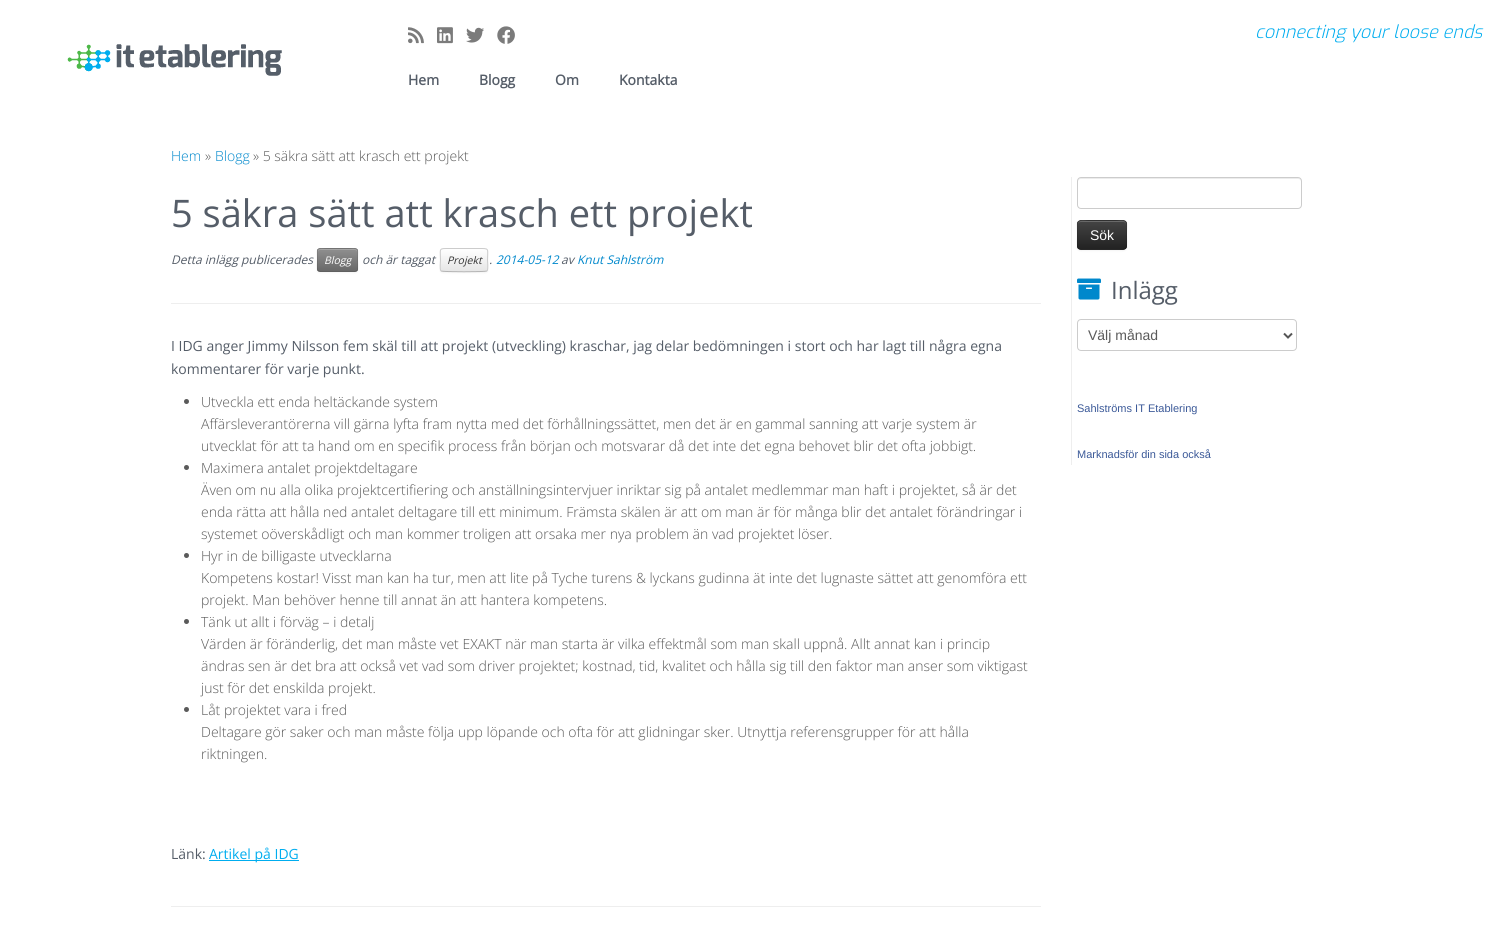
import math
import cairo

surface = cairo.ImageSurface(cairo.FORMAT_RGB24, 1512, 938)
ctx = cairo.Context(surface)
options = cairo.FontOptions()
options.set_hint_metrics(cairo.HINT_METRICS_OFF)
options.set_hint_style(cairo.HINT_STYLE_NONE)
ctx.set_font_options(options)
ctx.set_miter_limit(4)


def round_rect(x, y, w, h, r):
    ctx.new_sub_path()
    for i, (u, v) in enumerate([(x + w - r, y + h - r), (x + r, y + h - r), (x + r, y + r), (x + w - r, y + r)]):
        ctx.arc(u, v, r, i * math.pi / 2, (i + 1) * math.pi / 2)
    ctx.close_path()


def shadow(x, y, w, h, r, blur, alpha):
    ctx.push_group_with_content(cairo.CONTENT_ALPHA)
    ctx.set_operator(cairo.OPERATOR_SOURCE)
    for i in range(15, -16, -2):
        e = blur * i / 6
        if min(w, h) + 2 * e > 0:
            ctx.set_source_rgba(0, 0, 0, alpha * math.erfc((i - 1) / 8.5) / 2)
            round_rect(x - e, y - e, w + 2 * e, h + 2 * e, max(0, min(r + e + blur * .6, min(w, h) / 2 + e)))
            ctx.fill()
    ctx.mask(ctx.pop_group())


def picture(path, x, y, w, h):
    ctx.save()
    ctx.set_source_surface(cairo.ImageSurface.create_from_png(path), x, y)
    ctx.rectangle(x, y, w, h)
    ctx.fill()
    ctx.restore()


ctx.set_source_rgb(1, 1, 1)
ctx.paint()
picture("img1.png", 67, 44, 215, 32)
picture("img2.png", 408, 27, 16, 17)
picture("img3.png", 437, 27, 16, 17)
picture("img4.png", 466, 27, 18, 16)
picture("img5.png", 497, 26, 18, 18)
ctx.select_font_face("Exo Light", cairo.FONT_SLANT_ITALIC)
ctx.set_font_size(18)
ctx.set_source_rgb(0, 0.678, 0.937)
ctx.move_to(1255, 38)
ctx.show_text("connecting your loose ends")
ctx.select_font_face("Open Sans", cairo.FONT_SLANT_NORMAL, cairo.FONT_WEIGHT_BOLD)
ctx.set_font_size(14)
ctx.set_source_rgb(0.333, 0.365, 0.408)
ctx.move_to(408, 85)
ctx.show_text("Hem")
ctx.move_to(479, 85)
ctx.show_text("Blogg")
ctx.move_to(555, 85)
ctx.show_text("Om")
ctx.move_to(619, 85)
ctx.show_text("Kontakta")
ctx.select_font_face("Open Sans Light")
ctx.set_source_rgb(0, 0.533, 0.8)
ctx.move_to(171, 161)
ctx.show_text("Hem")
ctx.set_source_rgb(0.353, 0.353, 0.353)
ctx.move_to(205, 161)
ctx.show_text("»")
ctx.set_source_rgb(0, 0.533, 0.8)
ctx.move_to(215, 161)
ctx.show_text("Blogg")
ctx.set_source_rgb(0.353, 0.353, 0.353)
ctx.move_to(253, 161)
ctx.show_text("» 5 säkra sätt att krasch ett projekt")
ctx.select_font_face("Open Sans")
ctx.set_font_size(38)
ctx.set_source_rgb(0.333, 0.365, 0.408)
ctx.move_to(171, 227)
ctx.show_text("5 säkra sätt att krasch ett projekt")
ctx.select_font_face("Open Sans", cairo.FONT_SLANT_ITALIC)
ctx.set_font_size(12)
ctx.move_to(171, 264)
ctx.show_text("Detta inlägg publicerades")
ctx.set_source_rgb(0, 0, 0)
shadow(317, 249, 41, 24, 3, 1, 0.05)
ctx.set_source_rgb(0.502, 0.502, 0.502)
round_rect(317, 248, 41, 24, 3)
ctx.fill()
ctx.save()
round_rect(317, 248, 41, 24, 3)
ctx.clip()
gradient = cairo.LinearGradient(338, 249, 338, 271)
gradient.add_color_stop_rgba(0, 0.561, 0.561, 0.561, 1)
gradient.add_color_stop_rgba(1, 0.412, 0.412, 0.412, 1)
ctx.set_source(gradient)
ctx.rectangle(317, 249, 41, 22)
ctx.fill()
ctx.restore()
ctx.set_source_rgb(0.647, 0.647, 0.647)
ctx.new_path()
ctx.move_to(320, 250)
ctx.line_to(355, 250)
ctx.curve_to(356, 250, 357, 251, 357, 252)
ctx.curve_to(357, 247.5, 353, 249, 349, 249)
ctx.line_to(326, 249)
ctx.curve_to(322, 249, 318, 247.5, 318, 252)
ctx.curve_to(318, 251, 319, 250, 320, 250)
ctx.close_path()
ctx.fill()
ctx.new_path()
ctx.move_to(357, 271)
ctx.line_to(355, 271.5)
ctx.line_to(320, 271.5)
ctx.line_to(318, 271)
ctx.set_source_rgba(0, 0, 0, 0.25)
ctx.set_line_width(1)
ctx.stroke()
ctx.new_path()
ctx.move_to(318, 271)
ctx.curve_to(316.5, 269, 317.5, 262, 317.5, 260)
ctx.curve_to(317.5, 248.5, 315, 248.5, 326, 248.5)
ctx.line_to(349, 248.5)
ctx.curve_to(360, 248.5, 357.5, 248.5, 357.5, 260)
ctx.curve_to(357.5, 262, 358.5, 269, 357, 271)
ctx.set_source_rgba(0, 0, 0, 0.1)
ctx.stroke()
ctx.set_font_size(10.5)
ctx.set_source_rgb(1, 1, 1)
ctx.move_to(324, 264)
ctx.show_text("Blogg")
ctx.set_font_size(12)
ctx.set_source_rgb(0.333, 0.365, 0.408)
ctx.move_to(362, 264)
ctx.show_text("och är taggat")
ctx.set_source_rgb(0, 0, 0)
shadow(440, 249, 48, 24, 3, 1, 0.05)
ctx.set_source_rgb(0.961, 0.961, 0.961)
round_rect(440, 248, 48, 24, 3)
ctx.fill()
ctx.save()
round_rect(440, 248, 48, 24, 3)
ctx.clip()
gradient = cairo.LinearGradient(464, 249, 464, 271)
gradient.add_color_stop_rgba(0, 1, 1, 1, 1)
gradient.add_color_stop_rgba(1, 0.902, 0.902, 0.902, 1)
ctx.set_source(gradient)
ctx.rectangle(440, 249, 48, 22)
ctx.fill()
ctx.restore()
ctx.set_source_rgb(0.996, 0.996, 0.996)
ctx.new_path()
ctx.move_to(443, 250)
ctx.line_to(485, 250)
ctx.curve_to(486, 250, 487, 251, 487, 252)
ctx.curve_to(487, 247, 482, 249, 478, 249)
ctx.line_to(450, 249)
ctx.curve_to(446, 249, 441, 247, 441, 252)
ctx.curve_to(441, 251, 442, 250, 443, 250)
ctx.close_path()
ctx.fill()
ctx.new_path()
ctx.move_to(487, 271)
ctx.curve_to(485.5, 272, 442.5, 272, 441, 271)
ctx.set_source_rgb(0.702, 0.702, 0.702)
ctx.stroke()
ctx.new_path()
ctx.move_to(441, 271)
ctx.curve_to(439.5, 269, 440.5, 262, 440.5, 260)
ctx.curve_to(440.5, 248, 438, 248.5, 450, 248.5)
ctx.line_to(478, 248.5)
ctx.curve_to(490, 248.5, 487.5, 248, 487.5, 260)
ctx.curve_to(487.5, 262, 488.5, 269, 487, 271)
ctx.set_source_rgb(0.8, 0.8, 0.8)
ctx.stroke()
ctx.set_font_size(10.5)
ctx.set_source_rgb(0.2, 0.2, 0.2)
ctx.move_to(447, 264)
ctx.show_text("Projekt")
ctx.set_font_size(12)
ctx.set_source_rgb(0.333, 0.365, 0.408)
ctx.move_to(489, 264)
ctx.show_text(".")
ctx.set_source_rgb(0, 0.533, 0.8)
ctx.move_to(496, 264)
ctx.show_text("2014-05-12")
ctx.set_source_rgb(0.333, 0.365, 0.408)
ctx.move_to(561, 264)
ctx.show_text("av")
ctx.set_source_rgb(0, 0.533, 0.8)
ctx.move_to(577, 264)
ctx.show_text("Knut Sahlström")
ctx.set_source_rgb(0.933, 0.933, 0.933)
ctx.rectangle(171, 303, 870, 1)
ctx.fill()
ctx.select_font_face("Open Sans")
ctx.set_font_size(14)
ctx.set_source_rgb(0.333, 0.365, 0.408)
ctx.move_to(171, 351)
ctx.show_text("I IDG anger Jimmy Nilsson fem skäl till att projekt (utveckling) kraschar, jag delar bedömningen i stort och har lagt till några egna")
ctx.move_to(171, 374)
ctx.show_text("kommentarer för varje punkt.")
ctx.set_source_rgb(0.353, 0.353, 0.353)
ctx.new_path()
ctx.arc(186.5, 401.5, 2.5, 0, 2 * math.pi)
ctx.fill()
ctx.select_font_face("Open Sans Light")
ctx.move_to(201, 407)
ctx.show_text("Utveckla ett enda heltäckande system")
ctx.move_to(201, 429)
ctx.show_text("Affärsleverantörerna vill gärna lyfta fram nytta med det förhållningssättet, men det är en gammal sanning att varje system är")
ctx.move_to(201, 451)
ctx.show_text("utvecklat för att ta hand om en specifik process från början och motsvarar då det inte det egna behovet blir det ofta jobbigt.")
ctx.new_path()
ctx.arc(186.5, 467.5, 2.5, 0, 2 * math.pi)
ctx.fill()
ctx.move_to(201, 473)
ctx.show_text("Maximera antalet projektdeltagare")
ctx.move_to(201, 495)
ctx.show_text("Även om nu alla olika projektcertifiering och anställningsintervjuer inriktar sig på antalet medlemmar man haft i projektet, så är det")
ctx.move_to(201, 517)
ctx.show_text("enda rätta att hålla ned antalet deltagare till ett minimum. Främsta skälen är att om man är för många blir det antalet förändringar i")
ctx.move_to(201, 539)
ctx.show_text("systemet oöverskådligt och man kommer troligen att orsaka mer nya problem än vad projektet löser.")
ctx.new_path()
ctx.arc(186.5, 555.5, 2.5, 0, 2 * math.pi)
ctx.fill()
ctx.move_to(201, 561)
ctx.show_text("Hyr in de billigaste utvecklarna")
ctx.move_to(201, 583)
ctx.show_text("Kompetens kostar! Visst man kan ha tur, men att lite på Tyche turens & lyckans gudinna ät inte det lugnaste sättet att genomföra ett")
ctx.move_to(201, 605)
ctx.show_text("projekt. Man behöver henne till annat än att hantera kompetens.")
ctx.new_path()
ctx.arc(186.5, 621.5, 2.5, 0, 2 * math.pi)
ctx.fill()
ctx.move_to(201, 627)
ctx.show_text("Tänk ut allt i förväg – i detalj")
ctx.move_to(201, 649)
ctx.show_text("Värden är föränderlig, det man måste vet EXAKT när man starta är vilka effektmål som man skall uppnå. Allt annat kan i princip")
ctx.move_to(201, 671)
ctx.show_text("ändras sen är det bra att också vet vad som driver projektet; kostnad, tid, kvalitet och hålla sig till den faktor man anser som viktigast")
ctx.move_to(201, 693)
ctx.show_text("just för det enskilda projekt.")
ctx.new_path()
ctx.arc(186.5, 709.5, 2.5, 0, 2 * math.pi)
ctx.fill()
ctx.move_to(201, 715)
ctx.show_text("Låt projektet vara i fred")
ctx.move_to(201, 737)
ctx.show_text("Deltagare gör saker och man måste följa upp löpande och ofta för att glidningar sker. Utnyttja referensgrupper för att hålla")
ctx.move_to(201, 759)
ctx.show_text("riktningen.")
ctx.select_font_face("Open Sans")
ctx.set_source_rgb(0.333, 0.365, 0.408)
ctx.move_to(171, 859)
ctx.show_text("Länk:")
ctx.set_source_rgb(0, 0.678, 0.937)
ctx.rectangle(209, 860, 90, 1)
ctx.fill()
ctx.move_to(209, 859)
ctx.show_text("Artikel på IDG")
ctx.set_source_rgb(0.933, 0.933, 0.933)
ctx.rectangle(171, 906, 870, 1)
ctx.fill()
ctx.rectangle(1071, 177, 1, 288)
ctx.fill()
ctx.set_source_rgb(0.925, 0.925, 0.925)
ctx.new_path()
ctx.move_to(1081, 179)
ctx.line_to(1298, 179)
ctx.curve_to(1300, 179, 1301, 180, 1301, 182)
ctx.line_to(1301, 181)
ctx.curve_to(1301, 179, 1300, 178, 1298, 178)
ctx.line_to(1081, 178)
ctx.curve_to(1079, 178, 1078, 179, 1078, 181)
ctx.line_to(1078, 182)
ctx.curve_to(1078, 180, 1079, 179, 1081, 179)
ctx.close_path()
ctx.fill()
round_rect(1077.5, 177.5, 224, 31, 3.5)
ctx.set_source_rgb(0.8, 0.8, 0.8)
ctx.stroke()
ctx.set_source_rgb(0, 0, 0)
shadow(1077, 221, 50, 30, 4, 1, 0.05)
ctx.set_source_rgb(0.212, 0.212, 0.212)
round_rect(1077, 220, 50, 30, 4)
ctx.fill()
ctx.save()
round_rect(1077, 220, 50, 30, 4)
ctx.clip()
gradient = cairo.LinearGradient(1102, 221, 1102, 249)
gradient.add_color_stop_rgba(0, 0.267, 0.267, 0.267, 1)
gradient.add_color_stop_rgba(1, 0.133, 0.133, 0.133, 1)
ctx.set_source(gradient)
ctx.rectangle(1077, 221, 50, 28)
ctx.fill()
ctx.restore()
ctx.set_source_rgb(0.412, 0.412, 0.412)
ctx.new_path()
ctx.move_to(1081, 222)
ctx.line_to(1123, 222)
ctx.curve_to(1125, 222, 1126, 223, 1126, 225)
ctx.curve_to(1126, 219, 1120, 221, 1116, 221)
ctx.line_to(1088, 221)
ctx.curve_to(1084, 221, 1078, 219, 1078, 225)
ctx.curve_to(1078, 223, 1079, 222, 1081, 222)
ctx.close_path()
ctx.fill()
ctx.new_path()
ctx.move_to(1125.5, 248.5)
ctx.curve_to(1125, 249, 1124, 249.5, 1123, 249.5)
ctx.line_to(1081, 249.5)
ctx.curve_to(1080, 249.5, 1079, 249, 1078.5, 248.5)
ctx.set_source_rgba(0, 0, 0, 0.25)
ctx.stroke()
ctx.new_path()
ctx.move_to(1078.5, 248.5)
ctx.curve_to(1076.5, 246.5, 1077.5, 238, 1077.5, 235)
ctx.curve_to(1077.5, 221, 1074.5, 220.5, 1088, 220.5)
ctx.line_to(1116, 220.5)
ctx.curve_to(1129.5, 220.5, 1126.5, 221, 1126.5, 235)
ctx.curve_to(1126.5, 238, 1127.5, 246.5, 1125.5, 248.5)
ctx.set_source_rgba(0, 0, 0, 0.1)
ctx.stroke()
ctx.select_font_face("Liberation Sans")
ctx.set_source_rgb(1, 1, 1)
ctx.move_to(1090, 240)
ctx.show_text("Sök")
picture("img6.png", 1077, 278, 24, 22)
ctx.select_font_face("Open Sans")
ctx.set_font_size(24)
ctx.set_source_rgb(0.333, 0.365, 0.408)
ctx.move_to(1111, 299)
ctx.show_text("Inlägg")
round_rect(1077.5, 319.5, 219, 31, 3.5)
ctx.set_source_rgb(0.8, 0.8, 0.8)
ctx.stroke()
ctx.new_path()
ctx.move_to(1284, 333.5)
ctx.line_to(1288, 337.5)
ctx.line_to(1292, 333.5)
ctx.set_source_rgb(0.333, 0.333, 0.333)
ctx.set_line_width(2)
ctx.stroke()
ctx.select_font_face("Liberation Sans")
ctx.set_font_size(14)
ctx.set_source_rgb(0.353, 0.353, 0.353)
ctx.move_to(1088, 340)
ctx.show_text("Välj månad")
ctx.set_font_size(11)
ctx.set_source_rgb(0.231, 0.349, 0.596)
ctx.move_to(1077, 412)
ctx.show_text("Sahlströms IT Etablering")
ctx.move_to(1077, 458)
ctx.show_text("Marknadsför din sida också")
surface.write_to_png("page.png")
